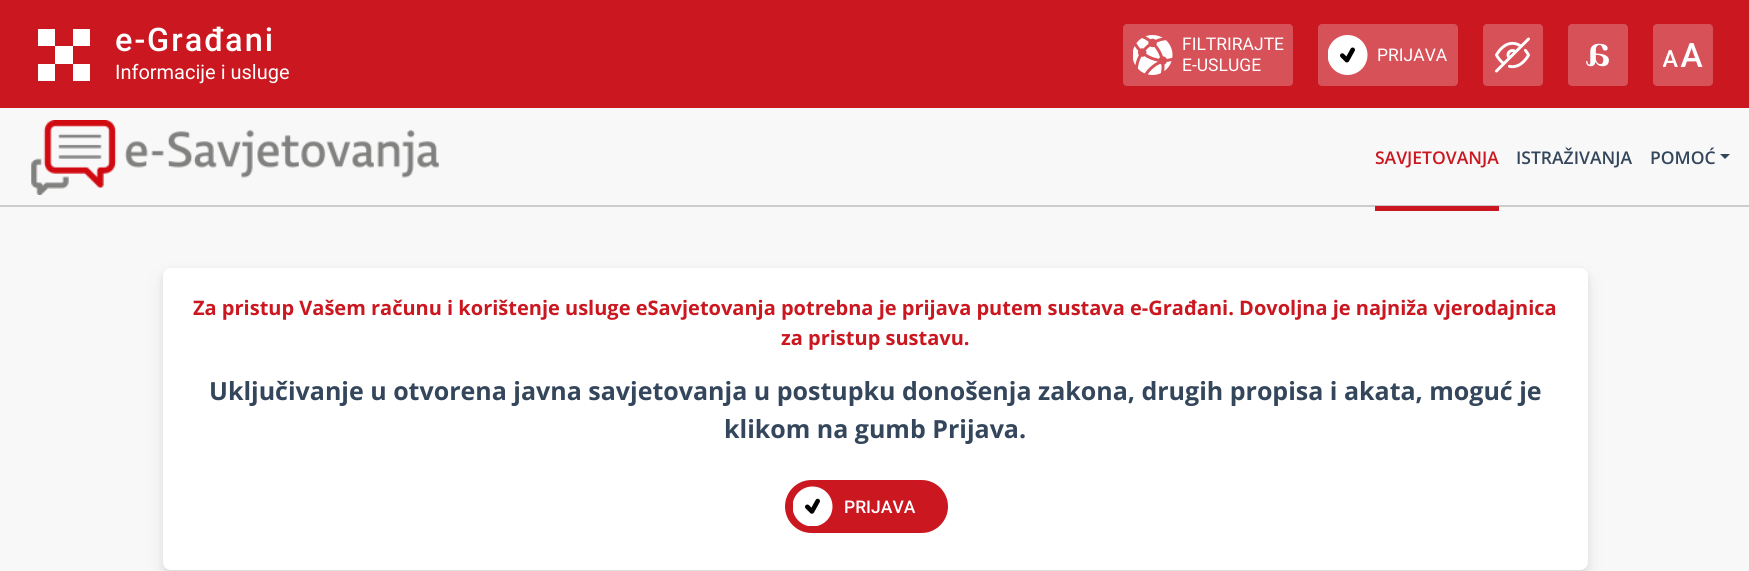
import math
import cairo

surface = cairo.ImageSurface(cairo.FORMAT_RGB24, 1749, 571)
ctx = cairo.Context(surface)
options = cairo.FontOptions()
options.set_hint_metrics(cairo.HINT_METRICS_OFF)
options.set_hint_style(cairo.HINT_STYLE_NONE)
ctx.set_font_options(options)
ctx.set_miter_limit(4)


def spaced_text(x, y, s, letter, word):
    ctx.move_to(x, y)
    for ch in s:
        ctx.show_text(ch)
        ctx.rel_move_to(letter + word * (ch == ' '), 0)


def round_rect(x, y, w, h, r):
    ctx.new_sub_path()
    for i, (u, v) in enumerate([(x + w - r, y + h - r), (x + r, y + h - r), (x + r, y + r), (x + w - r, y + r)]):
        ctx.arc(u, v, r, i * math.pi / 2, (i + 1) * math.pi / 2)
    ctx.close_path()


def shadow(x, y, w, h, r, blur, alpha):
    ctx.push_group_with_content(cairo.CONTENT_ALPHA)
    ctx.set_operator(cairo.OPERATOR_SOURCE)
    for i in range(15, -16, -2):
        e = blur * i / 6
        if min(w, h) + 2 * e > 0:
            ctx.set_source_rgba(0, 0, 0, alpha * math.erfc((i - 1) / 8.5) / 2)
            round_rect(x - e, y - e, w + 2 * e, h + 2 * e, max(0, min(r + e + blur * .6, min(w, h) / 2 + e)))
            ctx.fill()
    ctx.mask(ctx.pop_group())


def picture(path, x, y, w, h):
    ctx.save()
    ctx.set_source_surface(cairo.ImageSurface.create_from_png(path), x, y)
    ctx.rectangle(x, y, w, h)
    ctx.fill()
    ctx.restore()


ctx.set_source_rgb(0.969, 0.969, 0.969)
ctx.paint()
ctx.set_source_rgb(0.8, 0.8, 0.8)
ctx.rectangle(0, 205, 1749, 2)
ctx.fill()
ctx.set_source_rgb(0.792, 0.09, 0.125)
ctx.rectangle(0, 0, 1749, 108)
ctx.fill()
ctx.set_source_rgb(1, 1, 1)
ctx.rectangle(38, 29, 17, 17)
ctx.fill()
ctx.rectangle(73, 29, 17, 17)
ctx.fill()
ctx.rectangle(38, 64, 17, 17)
ctx.fill()
ctx.rectangle(73, 64, 17, 17)
ctx.fill()
ctx.rectangle(55, 46, 18, 18)
ctx.fill()
ctx.select_font_face("Roboto Medium")
ctx.set_font_size(32.5)
spaced_text(115, 51, "e-Građani", 2, 0)
ctx.select_font_face("Roboto")
ctx.set_font_size(20)
ctx.move_to(115, 79)
ctx.show_text("Informacije i usluge")
ctx.set_source_rgb(0.843, 0.318, 0.345)
round_rect(1123, 24, 170, 62, 4)
ctx.fill()
picture("img1.png", 1133, 35, 40, 40)
ctx.set_font_size(17.5)
ctx.set_source_rgb(1, 1, 1)
ctx.move_to(1182, 50)
ctx.show_text("FILTRIRAJTE")
ctx.move_to(1182, 71)
ctx.show_text("E-USLUGE")
ctx.set_source_rgb(0.843, 0.318, 0.345)
round_rect(1318, 24, 140, 62, 4)
ctx.fill()
picture("img2.png", 1328, 35, 40, 40)
ctx.set_source_rgb(1, 1, 1)
ctx.move_to(1377, 61)
ctx.show_text("PRIJAVA")
ctx.set_source_rgb(0.843, 0.318, 0.345)
round_rect(1483, 24, 60, 62, 4)
ctx.fill()
picture("img3.png", 1495, 37, 35, 36)
round_rect(1568, 24, 60, 62, 4)
ctx.fill()
picture("img4.png", 1586, 43, 23, 24)
round_rect(1653, 24, 60, 62, 4)
ctx.fill()
picture("img5.png", 1663, 43, 40, 24)
picture("img6.png", 31, 120, 408, 75)
ctx.set_source_rgb(0.792, 0.09, 0.125)
ctx.rectangle(1375, 206, 124, 5)
ctx.fill()
ctx.select_font_face("Open Sans SemiBold")
ctx.move_to(1375, 164)
ctx.show_text("SAVJETOVANJA")
ctx.set_source_rgb(0.204, 0.275, 0.357)
ctx.move_to(1516, 164)
ctx.show_text("ISTRAŽIVANJA")
ctx.move_to(1650, 164)
ctx.show_text("POMOĆ")
ctx.new_path()
ctx.move_to(1720, 154)
ctx.line_to(1730, 154)
ctx.line_to(1725, 159)
ctx.close_path()
ctx.fill()
ctx.set_source_rgb(0, 0, 0)
shadow(163, 271, 1425, 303, 8, 4, 0.07)
ctx.set_source_rgb(0.255, 0.271, 0.345)
shadow(163, 276, 1425, 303, 8, 9, 0.1)
ctx.set_source_rgb(1, 1, 1)
round_rect(163, 268, 1425, 302, 8)
ctx.fill()
ctx.select_font_face("Open Sans", cairo.FONT_SLANT_NORMAL, cairo.FONT_WEIGHT_BOLD)
ctx.set_font_size(20)
ctx.set_source_rgb(0.792, 0.09, 0.125)
ctx.move_to(193, 315)
ctx.show_text("Za pristup Vašem računu i korištenje usluge eSavjetovanja potrebna je prijava putem sustava e-Građani. Dovoljna je najniža vjerodajnica")
ctx.move_to(781, 345)
ctx.show_text("za pristup sustavu.")
ctx.set_font_size(25)
ctx.set_source_rgb(0.204, 0.275, 0.357)
ctx.move_to(209, 400)
ctx.show_text("Uključivanje u otvorena javna savjetovanja u postupku donošenja zakona, drugih propisa i akata, moguć je")
ctx.move_to(724, 438)
ctx.show_text("klikom na gumb Prijava.")
ctx.set_source_rgb(0.792, 0.09, 0.125)
round_rect(785, 480, 163, 53, 26.5)
ctx.fill()
picture("img7.png", 793, 486, 40, 40)
ctx.select_font_face("Roboto Medium")
ctx.set_font_size(17.5)
ctx.set_source_rgb(1, 1, 1)
ctx.move_to(844, 513)
ctx.show_text("PRIJAVA")
surface.write_to_png("page.png")
